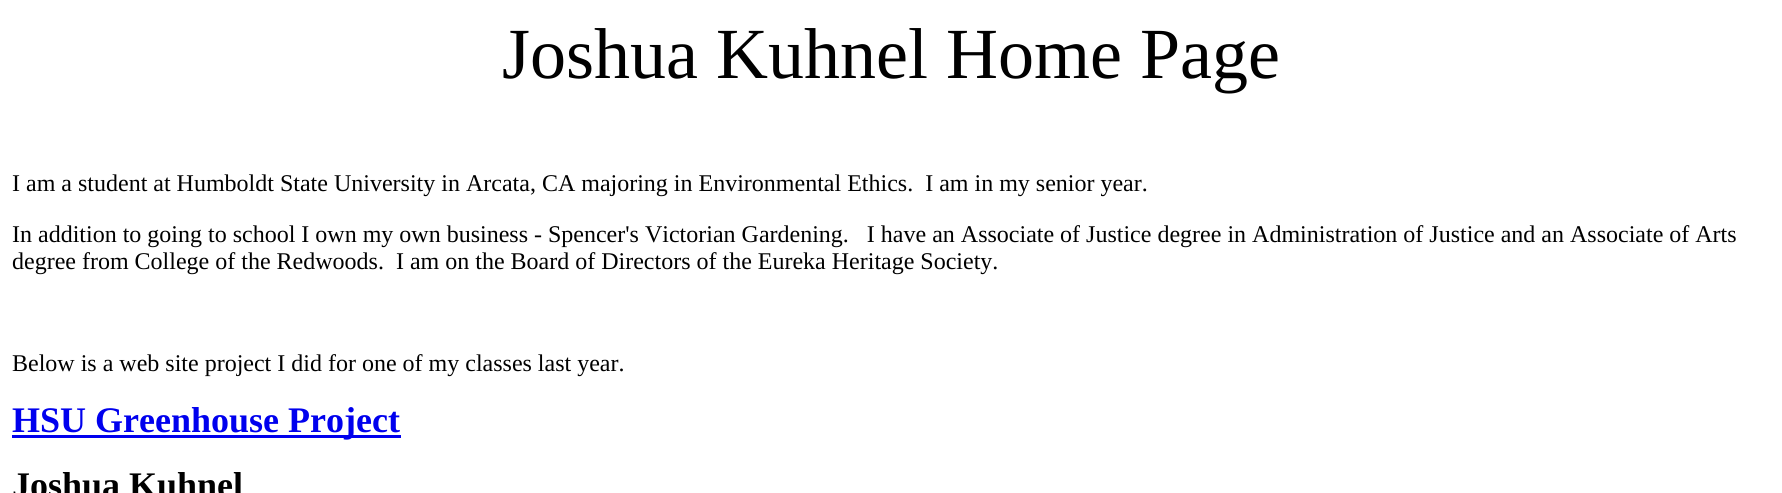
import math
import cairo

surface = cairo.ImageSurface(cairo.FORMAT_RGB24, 1782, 493)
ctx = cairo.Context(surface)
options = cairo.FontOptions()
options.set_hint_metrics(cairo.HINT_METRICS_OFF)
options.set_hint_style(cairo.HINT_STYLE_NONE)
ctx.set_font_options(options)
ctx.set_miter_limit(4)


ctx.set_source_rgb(1, 1, 1)
ctx.paint()
ctx.select_font_face("Liberation Serif")
ctx.set_font_size(72)
ctx.set_source_rgb(0, 0, 0)
ctx.move_to(502, 78)
ctx.show_text("Joshua Kuhnel Home Page")
ctx.set_font_size(24)
ctx.move_to(12, 191)
ctx.show_text("I am a student at Humboldt State University in Arcata, CA majoring in Environmental Ethics.  I am in my senior year.")
ctx.move_to(12, 242)
ctx.show_text("In addition to going to school I own my own business - Spencer's Victorian Gardening.   I have an Associate of Justice degree in Administration of Justice and an Associate of Arts")
ctx.move_to(12, 269)
ctx.show_text("degree from College of the Redwoods.  I am on the Board of Directors of the Eureka Heritage Society.")
ctx.move_to(12, 371)
ctx.show_text("Below is a web site project I did for one of my classes last year.")
ctx.set_source_rgb(0, 0, 0.933)
ctx.rectangle(12, 435, 389, 3)
ctx.fill()
ctx.select_font_face("Liberation Serif", cairo.FONT_SLANT_NORMAL, cairo.FONT_WEIGHT_BOLD)
ctx.set_font_size(36)
ctx.move_to(12, 432)
ctx.show_text("HSU Greenhouse Project")
ctx.set_source_rgb(0, 0, 0)
ctx.move_to(12, 497)
ctx.show_text("Joshua Kuhnel")
surface.write_to_png("page.png")
